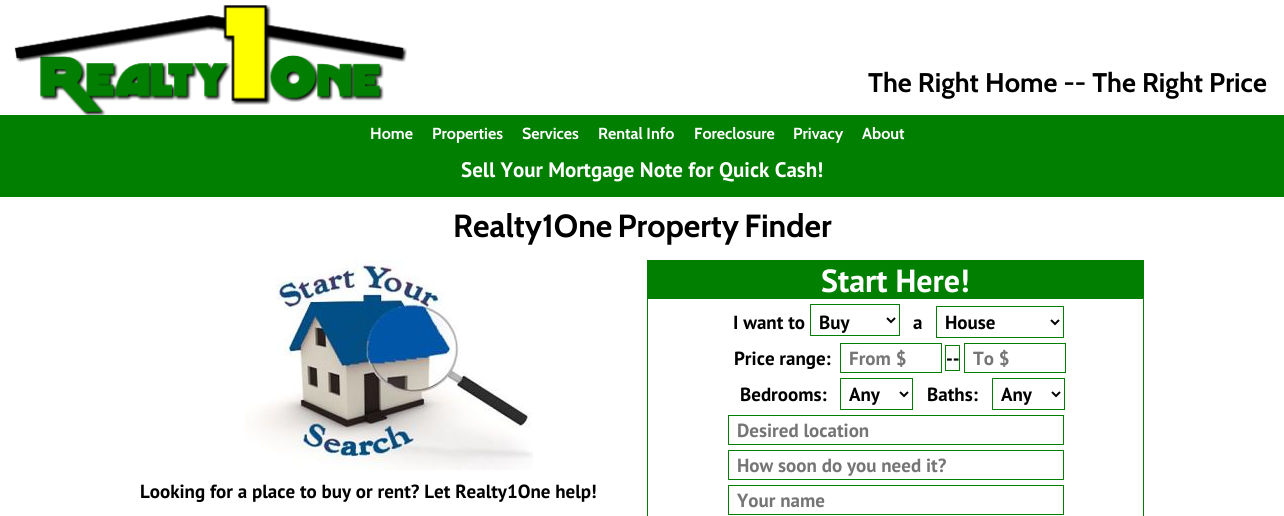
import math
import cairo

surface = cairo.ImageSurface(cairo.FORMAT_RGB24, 1284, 516)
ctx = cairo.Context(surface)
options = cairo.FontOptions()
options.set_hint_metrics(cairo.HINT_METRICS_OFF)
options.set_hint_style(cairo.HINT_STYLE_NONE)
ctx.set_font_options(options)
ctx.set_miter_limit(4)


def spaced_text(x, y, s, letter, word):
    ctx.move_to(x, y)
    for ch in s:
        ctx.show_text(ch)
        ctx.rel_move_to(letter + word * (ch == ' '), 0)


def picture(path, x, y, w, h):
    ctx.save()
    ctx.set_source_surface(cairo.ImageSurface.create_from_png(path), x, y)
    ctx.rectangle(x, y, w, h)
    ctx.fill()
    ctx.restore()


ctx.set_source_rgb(1, 1, 1)
ctx.paint()
picture("img1.png", 14, 5, 393, 110)
ctx.select_font_face("Cabin", cairo.FONT_SLANT_NORMAL, cairo.FONT_WEIGHT_BOLD)
ctx.set_font_size(27)
ctx.set_source_rgb(0, 0, 0)
ctx.move_to(868, 92)
ctx.show_text("The Right Home -- The Right Price")
ctx.set_source_rgb(0, 0.498, 0)
ctx.rectangle(0, 115, 1284, 82)
ctx.fill()
ctx.set_font_size(16)
ctx.set_source_rgb(1, 1, 1)
ctx.move_to(370, 139)
ctx.show_text("Home")
ctx.move_to(432, 139)
ctx.show_text("Properties")
ctx.move_to(522, 139)
ctx.show_text("Services")
ctx.move_to(598, 139)
ctx.show_text("Rental Info")
ctx.move_to(694, 139)
ctx.show_text("Foreclosure")
ctx.move_to(793, 139)
ctx.show_text("Privacy")
ctx.move_to(862, 139)
ctx.show_text("About")
ctx.select_font_face("PT Sans", cairo.FONT_SLANT_NORMAL, cairo.FONT_WEIGHT_BOLD)
ctx.set_font_size(21)
ctx.move_to(461, 177)
ctx.show_text("Sell Your Mortgage Note for Quick Cash!")
ctx.select_font_face("Cabin", cairo.FONT_SLANT_NORMAL, cairo.FONT_WEIGHT_BOLD)
ctx.set_font_size(32)
ctx.set_source_rgb(0, 0, 0)
spaced_text(453, 237, "Realty1One Property Finder", 0, -2)
picture("img2.png", 244, 260, 289, 210)
ctx.select_font_face("PT Sans", cairo.FONT_SLANT_NORMAL, cairo.FONT_WEIGHT_BOLD)
ctx.set_font_size(19)
ctx.move_to(140, 498)
ctx.show_text("Looking for a place to buy or rent? Let Realty1One help!")
ctx.rectangle(647.5, 260.5, 496, 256)
ctx.set_source_rgb(0, 0.498, 0)
ctx.set_line_width(1)
ctx.stroke()
ctx.rectangle(648, 261, 495, 38)
ctx.fill()
ctx.set_font_size(32)
ctx.set_source_rgb(1, 1, 1)
ctx.move_to(821, 292)
ctx.show_text("Start Here!")
ctx.set_font_size(19)
ctx.set_source_rgb(0, 0, 0)
ctx.move_to(733, 329)
ctx.show_text("I want to")
ctx.rectangle(810.5, 304.5, 89, 31)
ctx.set_source_rgb(0, 0.498, 0)
ctx.stroke()
ctx.new_path()
ctx.move_to(887, 318)
ctx.line_to(891, 322)
ctx.line_to(895, 318)
ctx.set_source_rgb(0, 0, 0)
ctx.set_line_width(2)
ctx.stroke()
ctx.move_to(819, 329)
ctx.show_text("Buy")
ctx.move_to(913, 329)
ctx.show_text("a")
ctx.rectangle(936.5, 306.5, 127, 31)
ctx.set_source_rgb(0, 0.498, 0)
ctx.set_line_width(1)
ctx.stroke()
ctx.new_path()
ctx.move_to(1051, 320)
ctx.line_to(1055, 324)
ctx.line_to(1059, 320)
ctx.set_source_rgb(0, 0, 0)
ctx.set_line_width(2)
ctx.stroke()
ctx.move_to(945, 329)
ctx.show_text("House")
ctx.move_to(734, 365)
ctx.show_text("Price range:")
ctx.rectangle(840.5, 343.5, 101, 29)
ctx.set_source_rgb(0, 0.498, 0)
ctx.set_line_width(1)
ctx.stroke()
ctx.set_source_rgb(0.459, 0.459, 0.459)
ctx.move_to(849, 365)
ctx.show_text("From $")
ctx.rectangle(945.5, 345.5, 14, 25)
ctx.set_source_rgb(0, 0.498, 0)
ctx.stroke()
ctx.set_source_rgb(0, 0, 0)
ctx.move_to(946, 365)
ctx.show_text("--")
ctx.rectangle(964.5, 343.5, 101, 29)
ctx.set_source_rgb(0, 0.498, 0)
ctx.stroke()
ctx.save()
ctx.rectangle(973, 346, 84, 24)
ctx.clip()
ctx.set_source_rgb(0.459, 0.459, 0.459)
ctx.move_to(973, 365)
ctx.show_text("To $")
ctx.restore()
ctx.set_source_rgb(0, 0, 0)
ctx.move_to(740, 401)
ctx.show_text("Bedrooms:")
ctx.rectangle(840.5, 378.5, 72, 31)
ctx.set_source_rgb(0, 0.498, 0)
ctx.stroke()
ctx.new_path()
ctx.move_to(900, 392)
ctx.line_to(904, 396)
ctx.line_to(908, 392)
ctx.set_source_rgb(0, 0, 0)
ctx.set_line_width(2)
ctx.stroke()
ctx.move_to(849, 401)
ctx.show_text("Any")
ctx.move_to(927, 401)
ctx.show_text("Baths:")
ctx.rectangle(992.5, 378.5, 72, 31)
ctx.set_source_rgb(0, 0.498, 0)
ctx.set_line_width(1)
ctx.stroke()
ctx.new_path()
ctx.move_to(1052, 392)
ctx.line_to(1056, 396)
ctx.line_to(1060, 392)
ctx.set_source_rgb(0, 0, 0)
ctx.set_line_width(2)
ctx.stroke()
ctx.move_to(1001, 401)
ctx.show_text("Any")
ctx.rectangle(728.5, 415.5, 335, 29)
ctx.set_source_rgb(0, 0.498, 0)
ctx.set_line_width(1)
ctx.stroke()
ctx.set_source_rgb(0.459, 0.459, 0.459)
ctx.move_to(737, 437)
ctx.show_text("Desired location")
ctx.rectangle(728.5, 450.5, 335, 29)
ctx.set_source_rgb(0, 0.498, 0)
ctx.stroke()
ctx.set_source_rgb(0.459, 0.459, 0.459)
ctx.move_to(737, 472)
ctx.show_text("How soon do you need it?")
ctx.rectangle(728.5, 485.5, 335, 29)
ctx.set_source_rgb(0, 0.498, 0)
ctx.stroke()
ctx.set_source_rgb(0.459, 0.459, 0.459)
ctx.move_to(737, 507)
ctx.show_text("Your name")
surface.write_to_png("page.png")
